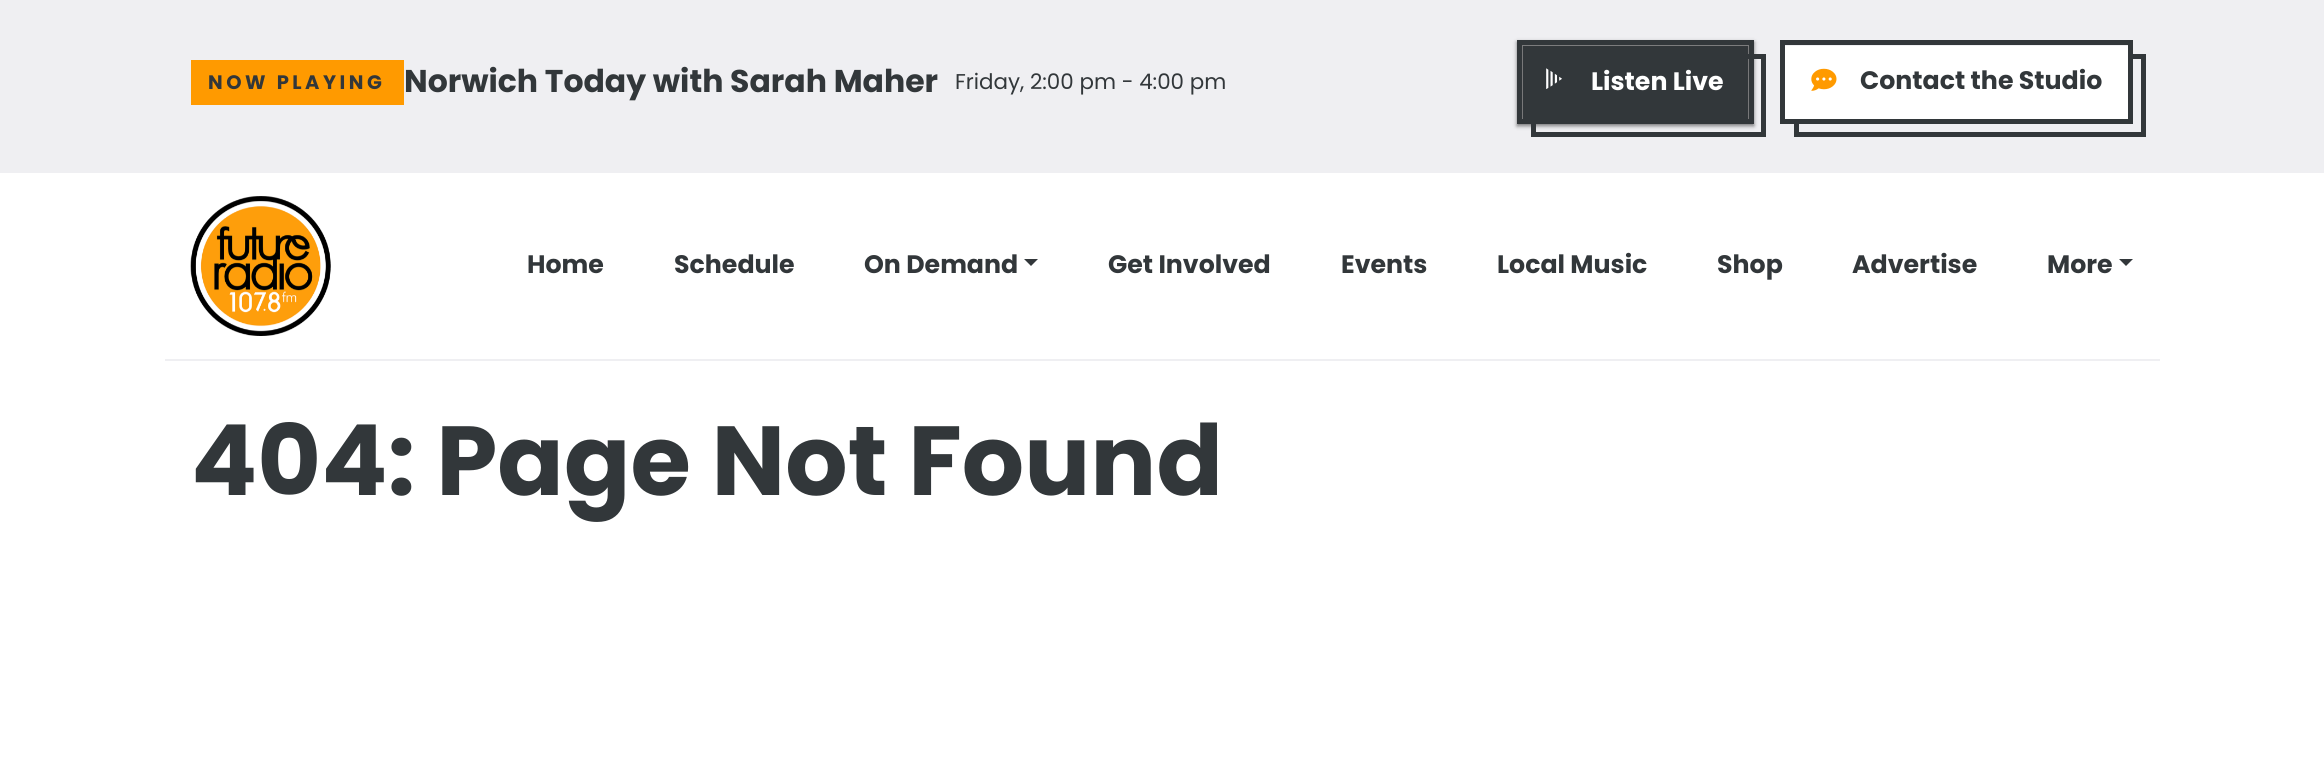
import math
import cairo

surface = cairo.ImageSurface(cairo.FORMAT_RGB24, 2324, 757)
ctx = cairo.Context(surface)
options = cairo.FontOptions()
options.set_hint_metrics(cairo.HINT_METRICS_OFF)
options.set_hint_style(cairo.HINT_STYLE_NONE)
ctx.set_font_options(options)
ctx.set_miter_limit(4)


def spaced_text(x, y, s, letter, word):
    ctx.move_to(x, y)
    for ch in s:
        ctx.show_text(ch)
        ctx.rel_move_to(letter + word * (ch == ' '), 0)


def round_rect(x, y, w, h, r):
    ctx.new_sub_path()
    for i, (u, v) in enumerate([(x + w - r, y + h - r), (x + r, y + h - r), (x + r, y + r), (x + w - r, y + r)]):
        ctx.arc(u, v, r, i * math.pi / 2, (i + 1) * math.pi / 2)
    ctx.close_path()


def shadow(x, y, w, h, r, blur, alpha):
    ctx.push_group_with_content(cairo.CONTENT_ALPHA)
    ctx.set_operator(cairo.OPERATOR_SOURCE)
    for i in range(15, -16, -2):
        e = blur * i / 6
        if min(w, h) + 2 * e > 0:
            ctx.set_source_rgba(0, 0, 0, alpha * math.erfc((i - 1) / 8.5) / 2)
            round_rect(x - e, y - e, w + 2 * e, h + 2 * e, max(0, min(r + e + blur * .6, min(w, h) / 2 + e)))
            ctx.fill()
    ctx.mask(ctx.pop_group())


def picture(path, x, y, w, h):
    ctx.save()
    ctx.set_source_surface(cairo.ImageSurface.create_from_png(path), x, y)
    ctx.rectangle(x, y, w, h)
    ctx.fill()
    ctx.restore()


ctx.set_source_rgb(1, 1, 1)
ctx.paint()
ctx.set_source_rgb(0.937, 0.937, 0.949)
ctx.rectangle(0, 0, 2324, 173)
ctx.fill()
ctx.set_source_rgb(1, 0.604, 0)
ctx.rectangle(191, 60, 213, 45)
ctx.fill()
ctx.select_font_face("Poppins", cairo.FONT_SLANT_NORMAL, cairo.FONT_WEIGHT_BOLD)
ctx.set_font_size(19.5)
ctx.set_source_rgb(0.196, 0.216, 0.227)
spaced_text(208, 89, "NOW PLAYING", 3.5, 0)
ctx.set_font_size(31.5)
ctx.move_to(404, 92)
ctx.show_text("Norwich Today with Sarah Maher")
ctx.select_font_face("Poppins")
ctx.set_font_size(21.4)
ctx.move_to(955, 89)
ctx.show_text("Friday, 2:00 pm - 4:00 pm")
ctx.set_source_rgb(0, 0, 0)
shadow(1517, 42, 237, 84, 0, 2, 0.5)
ctx.rectangle(1519.5, 42.5, 232, 79)
ctx.set_source_rgb(0.196, 0.216, 0.227)
ctx.set_line_width(5)
ctx.stroke()
ctx.rectangle(1533.5, 56.5, 230, 78)
ctx.stroke()
ctx.rectangle(1523, 46, 225, 73)
ctx.fill()
picture("img1.png", 1546, 68, 16, 21)
ctx.select_font_face("Poppins", cairo.FONT_SLANT_NORMAL, cairo.FONT_WEIGHT_BOLD)
ctx.set_font_size(25.25)
ctx.set_source_rgb(1, 1, 1)
ctx.move_to(1591, 90)
ctx.show_text("Listen Live")
ctx.rectangle(1782.5, 42.5, 348, 79)
ctx.set_source_rgb(0.196, 0.216, 0.227)
ctx.stroke()
ctx.rectangle(1796.5, 56.5, 347, 78)
ctx.stroke()
ctx.set_source_rgb(1, 1, 1)
ctx.rectangle(1785, 46, 343, 73)
ctx.fill()
picture("img2.png", 1811, 68, 26, 23)
ctx.set_source_rgb(0.196, 0.216, 0.227)
ctx.move_to(1860, 89)
ctx.show_text("Contact the Studio")
ctx.set_source_rgb(0.937, 0.937, 0.949)
ctx.rectangle(165, 359, 1995, 2)
ctx.fill()
picture("img3.png", 190, 196, 141, 140)
ctx.set_source_rgb(0.196, 0.216, 0.227)
ctx.move_to(527, 273)
ctx.show_text("Home")
ctx.move_to(674, 273)
ctx.show_text("Schedule")
ctx.move_to(864, 273)
ctx.show_text("On Demand")
ctx.new_path()
ctx.move_to(1024, 259)
ctx.line_to(1038, 259)
ctx.line_to(1031, 266)
ctx.close_path()
ctx.fill()
ctx.move_to(1108, 273)
ctx.show_text("Get Involved")
ctx.move_to(1341, 273)
ctx.show_text("Events")
ctx.move_to(1497, 273)
ctx.show_text("Local Music")
ctx.move_to(1717, 273)
ctx.show_text("Shop")
ctx.move_to(1852, 273)
ctx.show_text("Advertise")
ctx.move_to(2047, 273)
ctx.show_text("More")
ctx.new_path()
ctx.move_to(2119, 259)
ctx.line_to(2133, 259)
ctx.line_to(2126, 266)
ctx.close_path()
ctx.fill()
ctx.set_font_size(98)
ctx.move_to(191, 495)
ctx.show_text("404: Page Not Found")
surface.write_to_png("page.png")
